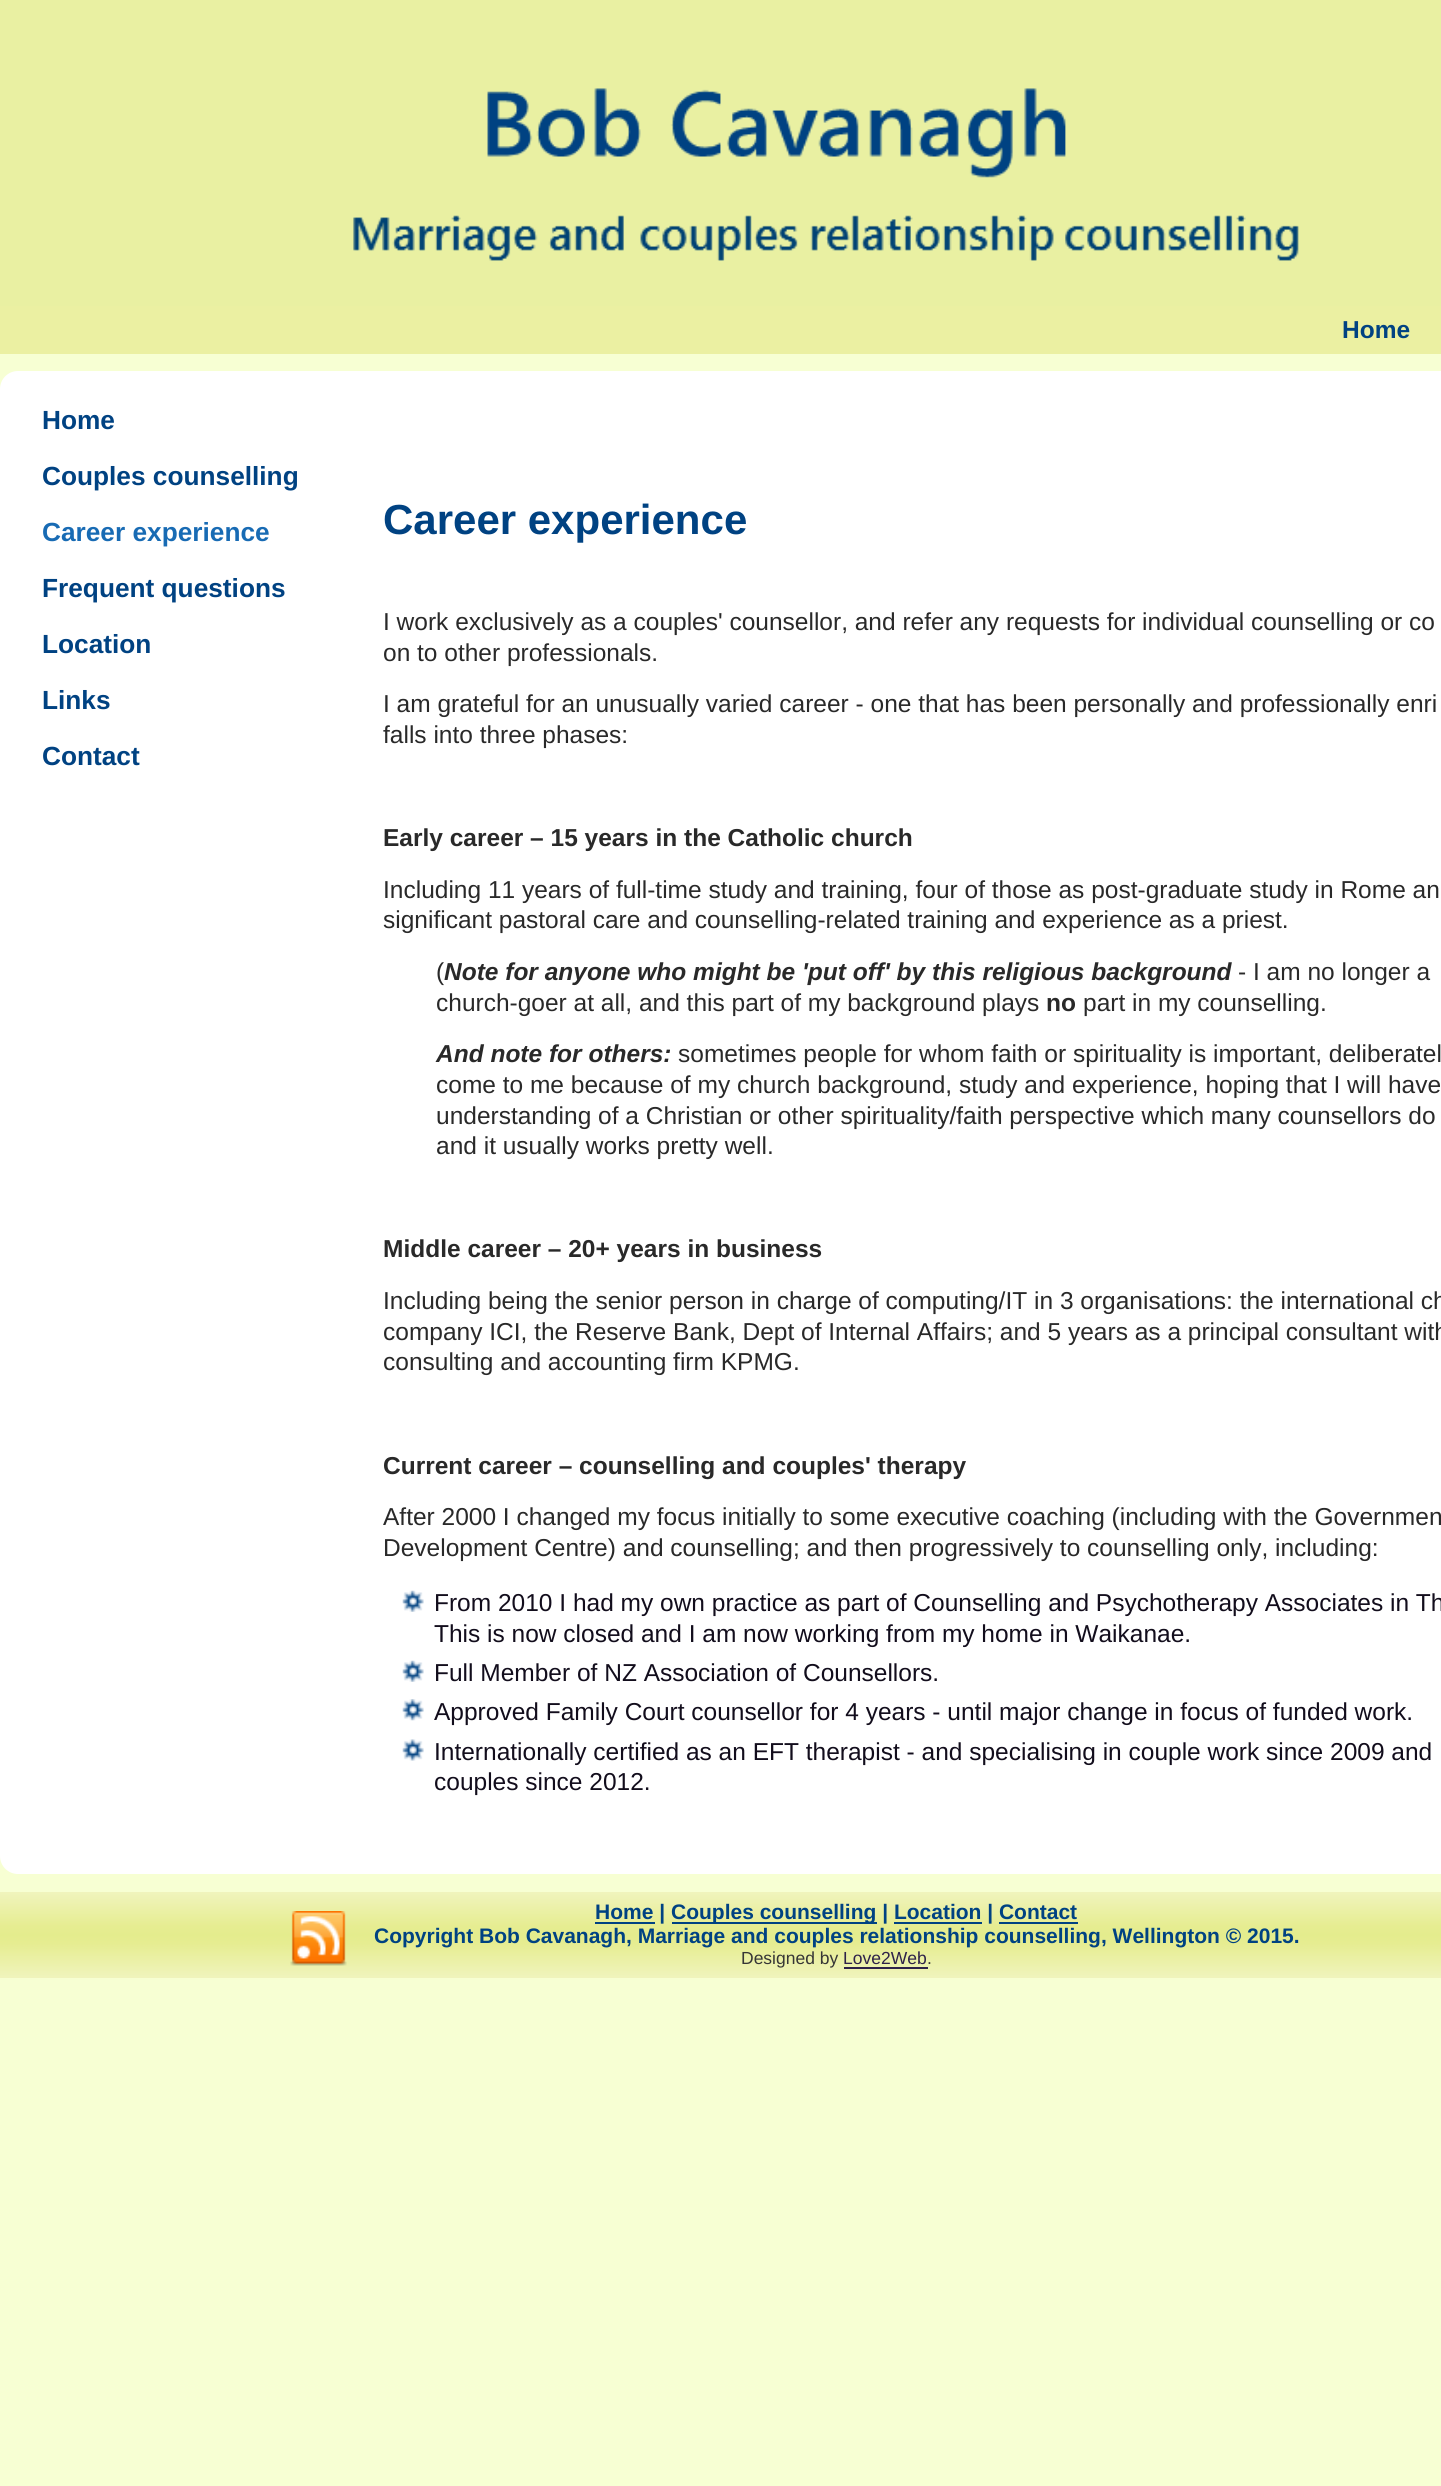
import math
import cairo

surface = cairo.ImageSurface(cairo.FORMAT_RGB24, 1441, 2486)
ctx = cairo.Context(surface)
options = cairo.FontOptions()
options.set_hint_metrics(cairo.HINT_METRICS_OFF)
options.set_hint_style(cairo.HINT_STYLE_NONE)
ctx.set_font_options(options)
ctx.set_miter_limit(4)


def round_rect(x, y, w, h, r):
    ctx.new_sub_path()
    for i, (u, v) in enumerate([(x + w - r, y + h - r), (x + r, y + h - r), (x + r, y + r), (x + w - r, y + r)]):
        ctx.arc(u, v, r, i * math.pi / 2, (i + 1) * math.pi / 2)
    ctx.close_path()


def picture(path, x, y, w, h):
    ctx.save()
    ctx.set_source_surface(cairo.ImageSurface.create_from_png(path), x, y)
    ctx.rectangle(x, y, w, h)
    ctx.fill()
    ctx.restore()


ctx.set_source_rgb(0.965, 1, 0.827)
ctx.paint()
ctx.set_source_rgb(0.914, 0.941, 0.635)
ctx.rectangle(0, 0, 1441, 306)
ctx.fill()
picture("img1.png", 353, 88, 946, 173)
ctx.set_source_rgb(0.918, 0.941, 0.635)
ctx.rectangle(0, 306, 1441, 48)
ctx.fill()
ctx.select_font_face("Liberation Sans", cairo.FONT_SLANT_NORMAL, cairo.FONT_WEIGHT_BOLD)
ctx.set_font_size(24.5)
ctx.set_source_rgb(0, 0.259, 0.51)
ctx.move_to(1342, 338)
ctx.show_text("Home")
ctx.set_source_rgb(1, 1, 1)
round_rect(0, 371, 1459, 1503, 18)
ctx.fill()
ctx.set_font_size(26.25)
ctx.set_source_rgb(0, 0.259, 0.51)
ctx.move_to(42, 429)
ctx.show_text("Home")
ctx.move_to(42, 485)
ctx.show_text("Couples counselling")
ctx.set_source_rgb(0.094, 0.42, 0.706)
ctx.move_to(42, 541)
ctx.show_text("Career experience")
ctx.set_source_rgb(0, 0.259, 0.51)
ctx.move_to(42, 597)
ctx.show_text("Frequent questions")
ctx.move_to(42, 653)
ctx.show_text("Location")
ctx.move_to(42, 709)
ctx.show_text("Links")
ctx.move_to(42, 765)
ctx.show_text("Contact")
ctx.set_font_size(42)
ctx.move_to(383, 534)
ctx.show_text("Career experience")
ctx.select_font_face("Liberation Sans")
ctx.set_font_size(24.5)
ctx.set_source_rgb(0.161, 0.161, 0.161)
ctx.move_to(383, 630)
ctx.show_text("I work exclusively as a couples' counsellor, and refer any requests for individual counselling or co")
ctx.move_to(383, 661)
ctx.show_text("on to other professionals.")
ctx.move_to(383, 712)
ctx.show_text("I am grateful for an unusually varied career - one that has been personally and professionally enri")
ctx.move_to(383, 743)
ctx.show_text("falls into three phases:")
ctx.select_font_face("Liberation Sans", cairo.FONT_SLANT_NORMAL, cairo.FONT_WEIGHT_BOLD)
ctx.move_to(383, 846)
ctx.show_text("Early career – 15 years in the Catholic church")
ctx.select_font_face("Liberation Sans")
ctx.move_to(383, 898)
ctx.show_text("Including 11 years of full-time study and training, four of those as post-graduate study in Rome an")
ctx.move_to(383, 928)
ctx.show_text("significant pastoral care and counselling-related training and experience as a priest.")
ctx.move_to(436, 980)
ctx.show_text("(")
ctx.select_font_face("Liberation Sans", cairo.FONT_SLANT_ITALIC, cairo.FONT_WEIGHT_BOLD)
ctx.move_to(444, 980)
ctx.show_text("Note for anyone who might be 'put off' by this religious background")
ctx.select_font_face("Liberation Sans")
ctx.move_to(1238, 980)
ctx.show_text("- I am no longer a")
ctx.move_to(436, 1011)
ctx.show_text("church-goer at all, and this part of my background plays")
ctx.select_font_face("Liberation Sans", cairo.FONT_SLANT_NORMAL, cairo.FONT_WEIGHT_BOLD)
ctx.move_to(1046, 1011)
ctx.show_text("no")
ctx.select_font_face("Liberation Sans")
ctx.move_to(1083, 1011)
ctx.show_text("part in my counselling.")
ctx.select_font_face("Liberation Sans", cairo.FONT_SLANT_ITALIC, cairo.FONT_WEIGHT_BOLD)
ctx.move_to(436, 1062)
ctx.show_text("And note for others:")
ctx.select_font_face("Liberation Sans")
ctx.move_to(678, 1062)
ctx.show_text("sometimes people for whom faith or spirituality is important, deliberatel")
ctx.move_to(436, 1093)
ctx.show_text("come to me because of my church background, study and experience, hoping that I will have")
ctx.move_to(436, 1124)
ctx.show_text("understanding of a Christian or other spirituality/faith perspective which many counsellors do")
ctx.move_to(436, 1154)
ctx.show_text("and it usually works pretty well.")
ctx.select_font_face("Liberation Sans", cairo.FONT_SLANT_NORMAL, cairo.FONT_WEIGHT_BOLD)
ctx.move_to(383, 1257)
ctx.show_text("Middle career – 20+ years in business")
ctx.select_font_face("Liberation Sans")
ctx.move_to(383, 1309)
ctx.show_text("Including being the senior person in charge of computing/IT in 3 organisations: the international ch")
ctx.move_to(383, 1340)
ctx.show_text("company ICI, the Reserve Bank, Dept of Internal Affairs; and 5 years as a principal consultant with")
ctx.move_to(383, 1370)
ctx.show_text("consulting and accounting firm KPMG.")
ctx.select_font_face("Liberation Sans", cairo.FONT_SLANT_NORMAL, cairo.FONT_WEIGHT_BOLD)
ctx.move_to(383, 1474)
ctx.show_text("Current career – counselling and couples' therapy")
ctx.select_font_face("Liberation Sans")
ctx.move_to(383, 1525)
ctx.show_text("After 2000 I changed my focus initially to some executive coaching (including with the Governmen")
ctx.move_to(383, 1556)
ctx.show_text("Development Centre) and counselling; and then progressively to counselling only, including:")
picture("img2.png", 402, 1590, 22, 22)
ctx.set_source_rgb(0.071, 0.051, 0.11)
ctx.move_to(434, 1611)
ctx.show_text("From 2010 I had my own practice as part of Counselling and Psychotherapy Associates in Th")
ctx.move_to(434, 1642)
ctx.show_text("This is now closed and I am now working from my home in Waikanae.")
picture("img2.png", 402, 1660, 22, 22)
ctx.move_to(434, 1681)
ctx.show_text("Full Member of NZ Association of Counsellors.")
picture("img3.png", 402, 1699, 22, 22)
ctx.move_to(434, 1720)
ctx.show_text("Approved Family Court counsellor for 4 years - until major change in focus of funded work.")
picture("img4.png", 402, 1739, 22, 22)
ctx.move_to(434, 1760)
ctx.show_text("Internationally certified as an EFT therapist - and specialising in couple work since 2009 and")
ctx.move_to(434, 1790)
ctx.show_text("couples since 2012.")
gradient = cairo.LinearGradient(816, 1892, 816, 1978)
gradient.add_color_stop_rgba(0, 0.941, 0.957, 0.741, 1)
gradient.add_color_stop_rgba(0.4, 0.902, 0.929, 0.569, 1)
gradient.add_color_stop_rgba(0.5, 0.894, 0.925, 0.553, 1)
gradient.add_color_stop_rgba(0.6, 0.902, 0.929, 0.569, 1)
gradient.add_color_stop_rgba(1, 0.941, 0.957, 0.741, 1)
ctx.set_source(gradient)
ctx.rectangle(0, 1892, 1441, 86)
ctx.fill()
picture("img5.png", 290, 1911, 57, 55)
ctx.set_source_rgb(0, 0.259, 0.51)
ctx.rectangle(595, 1922, 60, 2)
ctx.fill()
ctx.select_font_face("Liberation Sans", cairo.FONT_SLANT_NORMAL, cairo.FONT_WEIGHT_BOLD)
ctx.set_font_size(21)
ctx.move_to(595, 1919)
ctx.show_text("Home |")
ctx.rectangle(672, 1922, 205, 2)
ctx.fill()
ctx.move_to(671, 1919)
ctx.show_text("Couples counselling | Location | Contact")
ctx.rectangle(894, 1922, 88, 2)
ctx.fill()
ctx.rectangle(999, 1922, 79, 2)
ctx.fill()
ctx.move_to(374, 1943)
ctx.show_text("Copyright Bob Cavanagh, Marriage and couples relationship counselling, Wellington © 2015.")
ctx.select_font_face("Liberation Sans")
ctx.set_font_size(17.5)
ctx.set_source_rgb(0.212, 0.212, 0.212)
ctx.move_to(741, 1964)
ctx.show_text("Designed by")
ctx.set_source_rgb(0.18, 0.133, 0.286)
ctx.move_to(843, 1964)
ctx.show_text("Love2Web")
ctx.set_source_rgb(0.212, 0.212, 0.212)
ctx.move_to(927, 1964)
ctx.show_text(".")
ctx.set_source_rgb(0.18, 0.133, 0.286)
ctx.rectangle(844, 1967, 84, 2)
ctx.fill()
surface.write_to_png("page.png")
